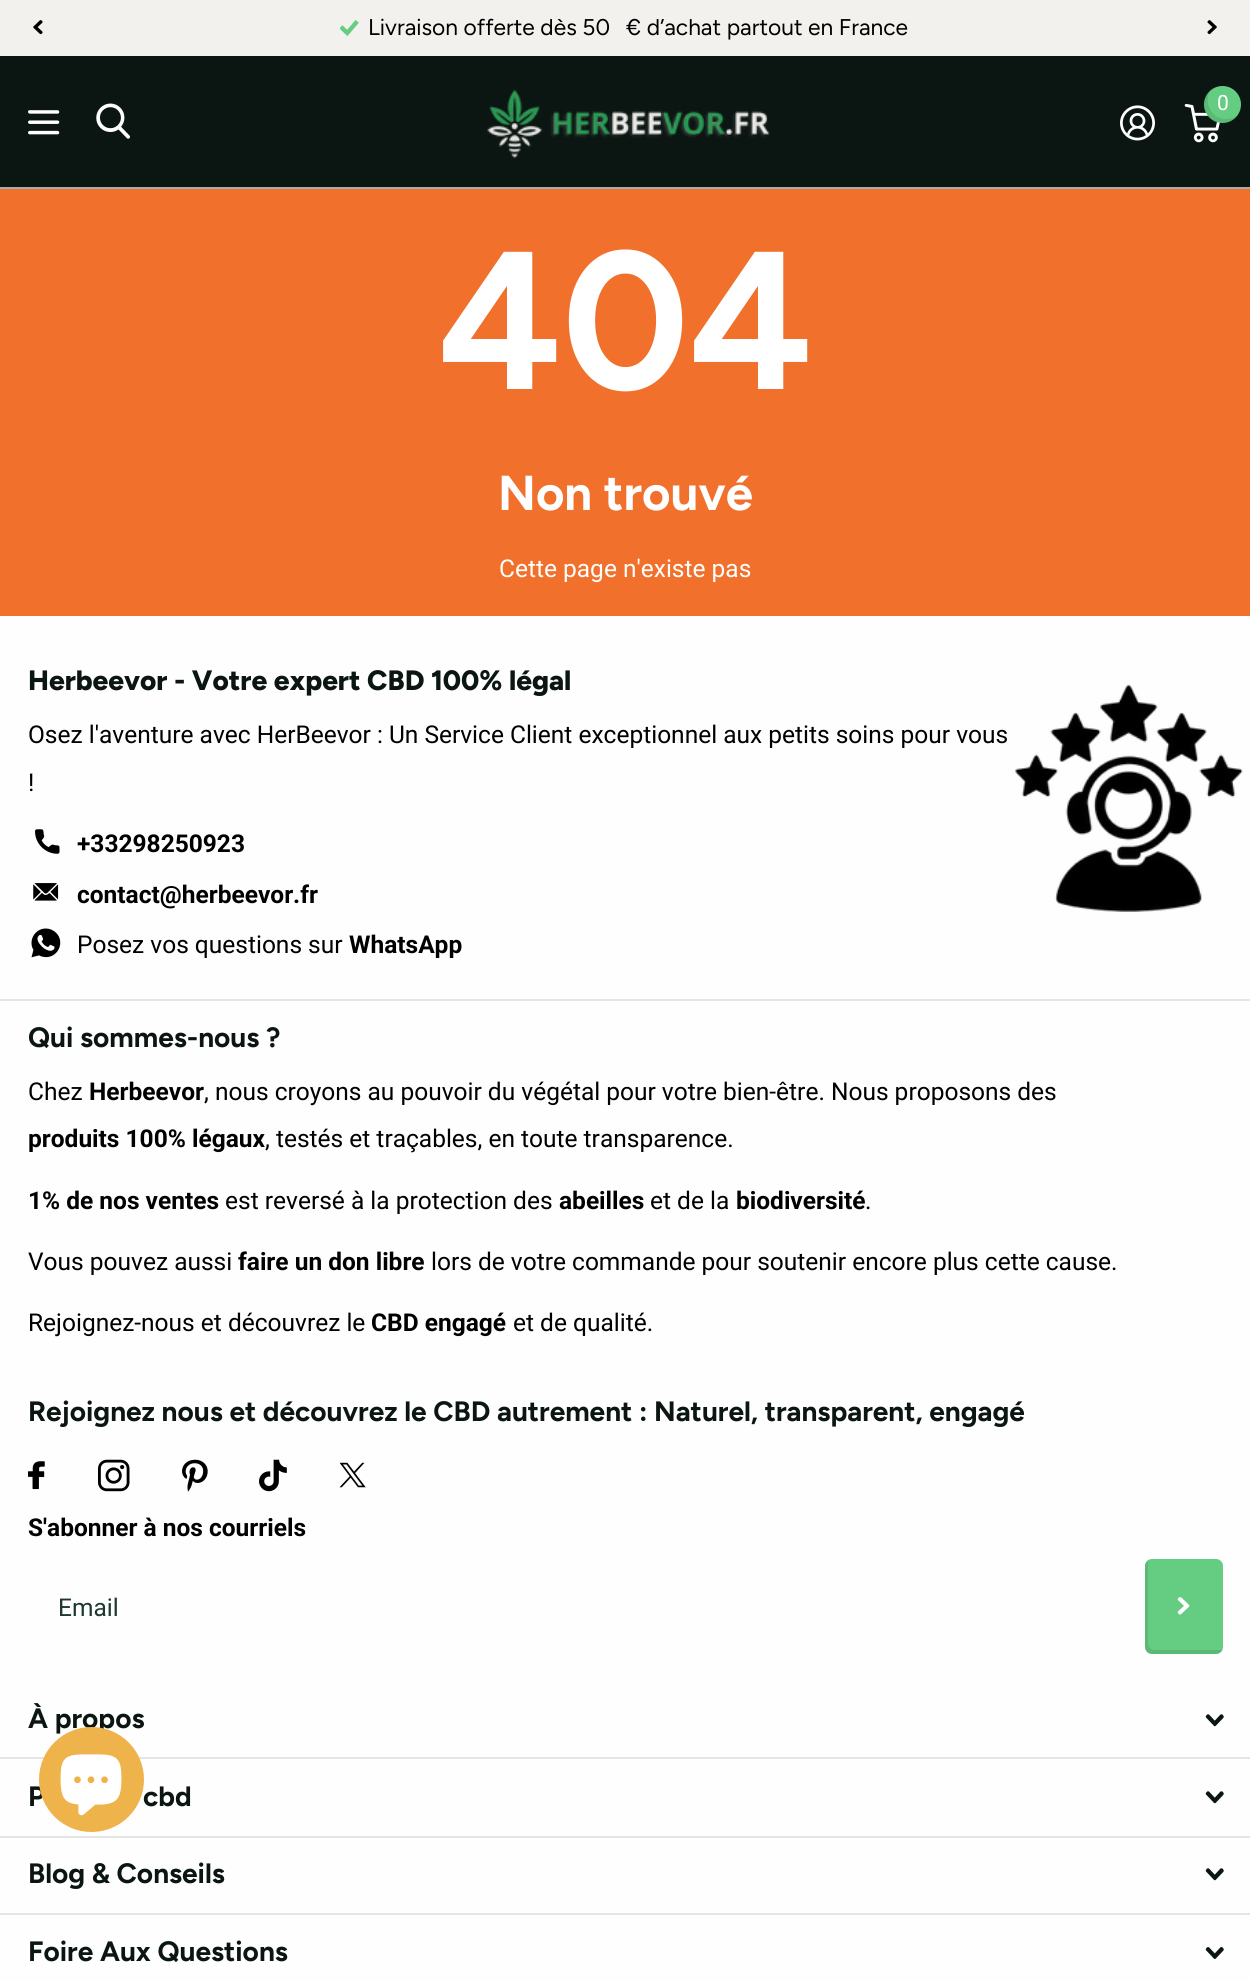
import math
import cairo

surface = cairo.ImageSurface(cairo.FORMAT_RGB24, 1250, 1981)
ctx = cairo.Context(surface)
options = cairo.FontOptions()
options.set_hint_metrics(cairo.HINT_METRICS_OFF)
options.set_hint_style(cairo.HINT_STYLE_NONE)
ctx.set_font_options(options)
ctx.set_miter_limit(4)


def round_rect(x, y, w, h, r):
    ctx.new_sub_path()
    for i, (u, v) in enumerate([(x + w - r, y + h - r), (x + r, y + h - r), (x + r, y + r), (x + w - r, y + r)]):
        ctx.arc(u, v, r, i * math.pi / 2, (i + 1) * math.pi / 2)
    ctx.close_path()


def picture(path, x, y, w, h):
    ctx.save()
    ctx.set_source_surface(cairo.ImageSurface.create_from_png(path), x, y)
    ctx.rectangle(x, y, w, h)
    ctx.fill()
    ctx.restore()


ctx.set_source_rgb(0.941, 0.439, 0.173)
ctx.paint()
ctx.set_source_rgb(0.953, 0.945, 0.933)
ctx.rectangle(0, 0, 1250, 56)
ctx.fill()
picture("img1.png", 33, 20, 10, 15)
picture("img2.png", 340, 20, 19, 16)
ctx.select_font_face("Figtree")
ctx.set_font_size(22.75)
ctx.set_source_rgb(0, 0, 0)
ctx.move_to(368, 35)
ctx.show_text("Livraison offerte dès 50 € d’achat partout en France")
picture("img3.png", 1207, 20, 10, 15)
ctx.set_source_rgb(0.043, 0.086, 0.075)
ctx.rectangle(0, 56, 1250, 131)
ctx.fill()
ctx.set_source_rgb(0.663, 0.678, 0.671)
ctx.rectangle(0, 187, 1250, 2)
ctx.fill()
picture("img4.png", 28, 110, 32, 25)
picture("img5.png", 96, 103, 34, 36)
picture("img6.png", 487, 89, 283, 70)
picture("img7.png", 1184, 103, 36, 40)
ctx.set_source_rgb(0.392, 0.804, 0.51)
ctx.arc(1222.5, 104.5, 18.5, 0, 2 * math.pi)
ctx.fill()
ctx.set_source_rgba(0, 0, 0, 0.1)
ctx.new_path()
ctx.move_to(1238, 115)
ctx.curve_to(1235, 117.5, 1231, 119, 1226, 119)
ctx.curve_to(1209.5, 119, 1204, 101, 1210.5, 90)
ctx.curve_to(1202.5, 97, 1202, 110, 1209.5, 117.5)
ctx.curve_to(1217.5, 125.5, 1231.5, 124.5, 1238, 115)
ctx.close_path()
ctx.fill()
ctx.select_font_face("Roboto")
ctx.set_font_size(21)
ctx.set_source_rgb(1, 1, 1)
ctx.move_to(1217, 110)
ctx.show_text("0")
picture("img8.png", 1120, 105, 35, 36)
ctx.select_font_face("Figtree", cairo.FONT_SLANT_NORMAL, cairo.FONT_WEIGHT_BOLD)
ctx.set_font_size(196)
ctx.move_to(438, 389)
ctx.show_text("404")
ctx.set_font_size(49)
ctx.move_to(498, 510)
ctx.show_text("Non trouvé")
ctx.select_font_face("Roboto")
ctx.set_font_size(24.5)
ctx.move_to(499, 577)
ctx.show_text("Cette page n'existe pas")
ctx.set_source_rgb(0.996, 0.996, 0.996)
ctx.rectangle(0, 616, 1250, 1365)
ctx.fill()
ctx.select_font_face("Figtree ExtraBold")
ctx.set_font_size(28)
ctx.set_source_rgb(0.043, 0.086, 0.075)
ctx.move_to(28, 690)
ctx.show_text("Herbeevor - Votre expert CBD 100% légal")
picture("img9.png", 1015, 684, 228, 228)
ctx.select_font_face("Roboto")
ctx.set_font_size(24.5)
ctx.set_source_rgb(0, 0, 0)
ctx.move_to(28, 743)
ctx.show_text("Osez l'aventure avec HerBeevor : Un Service Client exceptionnel aux petits soins pour vous")
ctx.move_to(28, 791)
ctx.show_text("!")
picture("img10.png", 35, 829, 25, 25)
ctx.select_font_face("Roboto", cairo.FONT_SLANT_NORMAL, cairo.FONT_WEIGHT_BOLD)
ctx.move_to(77, 852)
ctx.show_text("+33298250923")
picture("img11.png", 33, 883, 26, 18)
ctx.move_to(77, 903)
ctx.show_text("contact@herbeevor.fr")
picture("img12.png", 31, 928, 30, 30)
ctx.select_font_face("Roboto")
ctx.move_to(77, 953)
ctx.show_text("Posez vos questions sur")
ctx.select_font_face("Roboto", cairo.FONT_SLANT_NORMAL, cairo.FONT_WEIGHT_BOLD)
ctx.move_to(349, 953)
ctx.show_text("WhatsApp")
ctx.set_source_rgb(0.898, 0.898, 0.898)
ctx.rectangle(0, 999, 1250, 2)
ctx.fill()
ctx.select_font_face("Figtree", cairo.FONT_SLANT_NORMAL, cairo.FONT_WEIGHT_BOLD)
ctx.set_font_size(28)
ctx.set_source_rgb(0.043, 0.086, 0.075)
ctx.move_to(28, 1047)
ctx.show_text("Qui sommes-nous ?")
ctx.select_font_face("Roboto")
ctx.set_font_size(24.5)
ctx.set_source_rgb(0, 0, 0)
ctx.move_to(28, 1100)
ctx.show_text("Chez")
ctx.select_font_face("Roboto", cairo.FONT_SLANT_NORMAL, cairo.FONT_WEIGHT_BOLD)
ctx.move_to(89, 1100)
ctx.show_text("Herbeevor")
ctx.select_font_face("Roboto")
ctx.move_to(204, 1100)
ctx.show_text(", nous croyons au pouvoir du végétal pour votre bien-être. Nous proposons des")
ctx.select_font_face("Roboto", cairo.FONT_SLANT_NORMAL, cairo.FONT_WEIGHT_BOLD)
ctx.move_to(28, 1147)
ctx.show_text("produits 100% légaux")
ctx.select_font_face("Roboto")
ctx.move_to(265, 1147)
ctx.show_text(", testés et traçables, en toute transparence.")
ctx.select_font_face("Roboto", cairo.FONT_SLANT_NORMAL, cairo.FONT_WEIGHT_BOLD)
ctx.move_to(28, 1209)
ctx.show_text("1% de nos ventes")
ctx.select_font_face("Roboto")
ctx.move_to(225, 1209)
ctx.show_text("est reversé à la protection des")
ctx.select_font_face("Roboto", cairo.FONT_SLANT_NORMAL, cairo.FONT_WEIGHT_BOLD)
ctx.move_to(559, 1209)
ctx.show_text("abeilles")
ctx.select_font_face("Roboto")
ctx.move_to(650, 1209)
ctx.show_text("et de la")
ctx.select_font_face("Roboto", cairo.FONT_SLANT_NORMAL, cairo.FONT_WEIGHT_BOLD)
ctx.move_to(736, 1209)
ctx.show_text("biodiversité")
ctx.select_font_face("Roboto")
ctx.move_to(865, 1209)
ctx.show_text(".")
ctx.move_to(28, 1270)
ctx.show_text("Vous pouvez aussi")
ctx.select_font_face("Roboto", cairo.FONT_SLANT_NORMAL, cairo.FONT_WEIGHT_BOLD)
ctx.move_to(238, 1270)
ctx.show_text("faire un don libre")
ctx.select_font_face("Roboto")
ctx.move_to(431, 1270)
ctx.show_text("lors de votre commande pour soutenir encore plus cette cause.")
ctx.move_to(28, 1331)
ctx.show_text("Rejoignez-nous et découvrez le")
ctx.select_font_face("Roboto", cairo.FONT_SLANT_NORMAL, cairo.FONT_WEIGHT_BOLD)
ctx.move_to(371, 1331)
ctx.show_text("CBD engagé")
ctx.select_font_face("Roboto")
ctx.move_to(513, 1331)
ctx.show_text("et de qualité.")
ctx.select_font_face("Figtree", cairo.FONT_SLANT_NORMAL, cairo.FONT_WEIGHT_BOLD)
ctx.set_font_size(28)
ctx.set_source_rgb(0.043, 0.086, 0.075)
ctx.move_to(28, 1421)
ctx.show_text("Rejoignez nous et découvrez le CBD autrement : Naturel, transparent, engagé")
picture("img13.png", 28, 1461, 17, 29)
picture("img14.png", 98, 1459, 32, 33)
picture("img15.png", 182, 1459, 26, 33)
picture("img16.png", 259, 1459, 28, 33)
picture("img17.png", 339, 1462, 27, 26)
ctx.select_font_face("Roboto", cairo.FONT_SLANT_NORMAL, cairo.FONT_WEIGHT_BOLD)
ctx.set_font_size(24.5)
ctx.set_source_rgb(0, 0, 0)
ctx.move_to(28, 1536)
ctx.show_text("S'abonner à nos courriels")
ctx.select_font_face("Roboto")
ctx.set_source_rgb(0.11, 0.22, 0.188)
ctx.move_to(58, 1616)
ctx.show_text("Email")
ctx.set_source_rgb(0.392, 0.804, 0.51)
round_rect(1145, 1559, 78, 95, 7)
ctx.fill()
ctx.set_source_rgba(0, 0, 0, 0.1)
ctx.new_path()
ctx.move_to(1149, 1560)
ctx.curve_to(1147, 1561, 1145, 1563, 1145, 1566)
ctx.line_to(1145, 1647)
ctx.curve_to(1145, 1651, 1148, 1654, 1152, 1654)
ctx.line_to(1216, 1654)
ctx.curve_to(1219, 1654, 1221, 1652, 1223, 1650)
ctx.line_to(1220, 1650)
ctx.line_to(1155, 1650)
ctx.curve_to(1151, 1650, 1148, 1647, 1148, 1643)
ctx.line_to(1148, 1563)
ctx.close_path()
ctx.fill()
picture("img18.png", 1177, 1597, 13, 18)
ctx.select_font_face("Figtree", cairo.FONT_SLANT_NORMAL, cairo.FONT_WEIGHT_BOLD)
ctx.set_font_size(28)
ctx.set_source_rgb(0.043, 0.086, 0.075)
ctx.move_to(28, 1728)
ctx.show_text("À propos")
picture("img19.png", 1205, 1714, 19, 13)
ctx.set_source_rgb(0.898, 0.898, 0.898)
ctx.rectangle(0, 1757, 1250, 2)
ctx.fill()
ctx.set_source_rgb(0.043, 0.086, 0.075)
ctx.move_to(28, 1806)
ctx.show_text("P")
ctx.move_to(143, 1806)
ctx.show_text("cbd")
picture("img19.png", 1205, 1791, 19, 13)
ctx.set_source_rgb(0.898, 0.898, 0.898)
ctx.rectangle(0, 1836, 1250, 2)
ctx.fill()
ctx.set_source_rgb(0.043, 0.086, 0.075)
ctx.move_to(28, 1883)
ctx.show_text("Blog & Conseils")
picture("img19.png", 1205, 1868, 19, 13)
ctx.set_source_rgb(0.898, 0.898, 0.898)
ctx.rectangle(0, 1913, 1250, 2)
ctx.fill()
ctx.set_source_rgb(0.043, 0.086, 0.075)
ctx.move_to(28, 1961)
ctx.show_text("Foire Aux Questions")
picture("img20.png", 1205, 1947, 19, 12)
ctx.set_source_rgb(0.937, 0.702, 0.298)
ctx.arc(91.5, 1779.5, 52.5, 0, 2 * math.pi)
ctx.fill()
picture("img21.png", 60, 1754, 62, 62)
surface.write_to_png("page.png")
